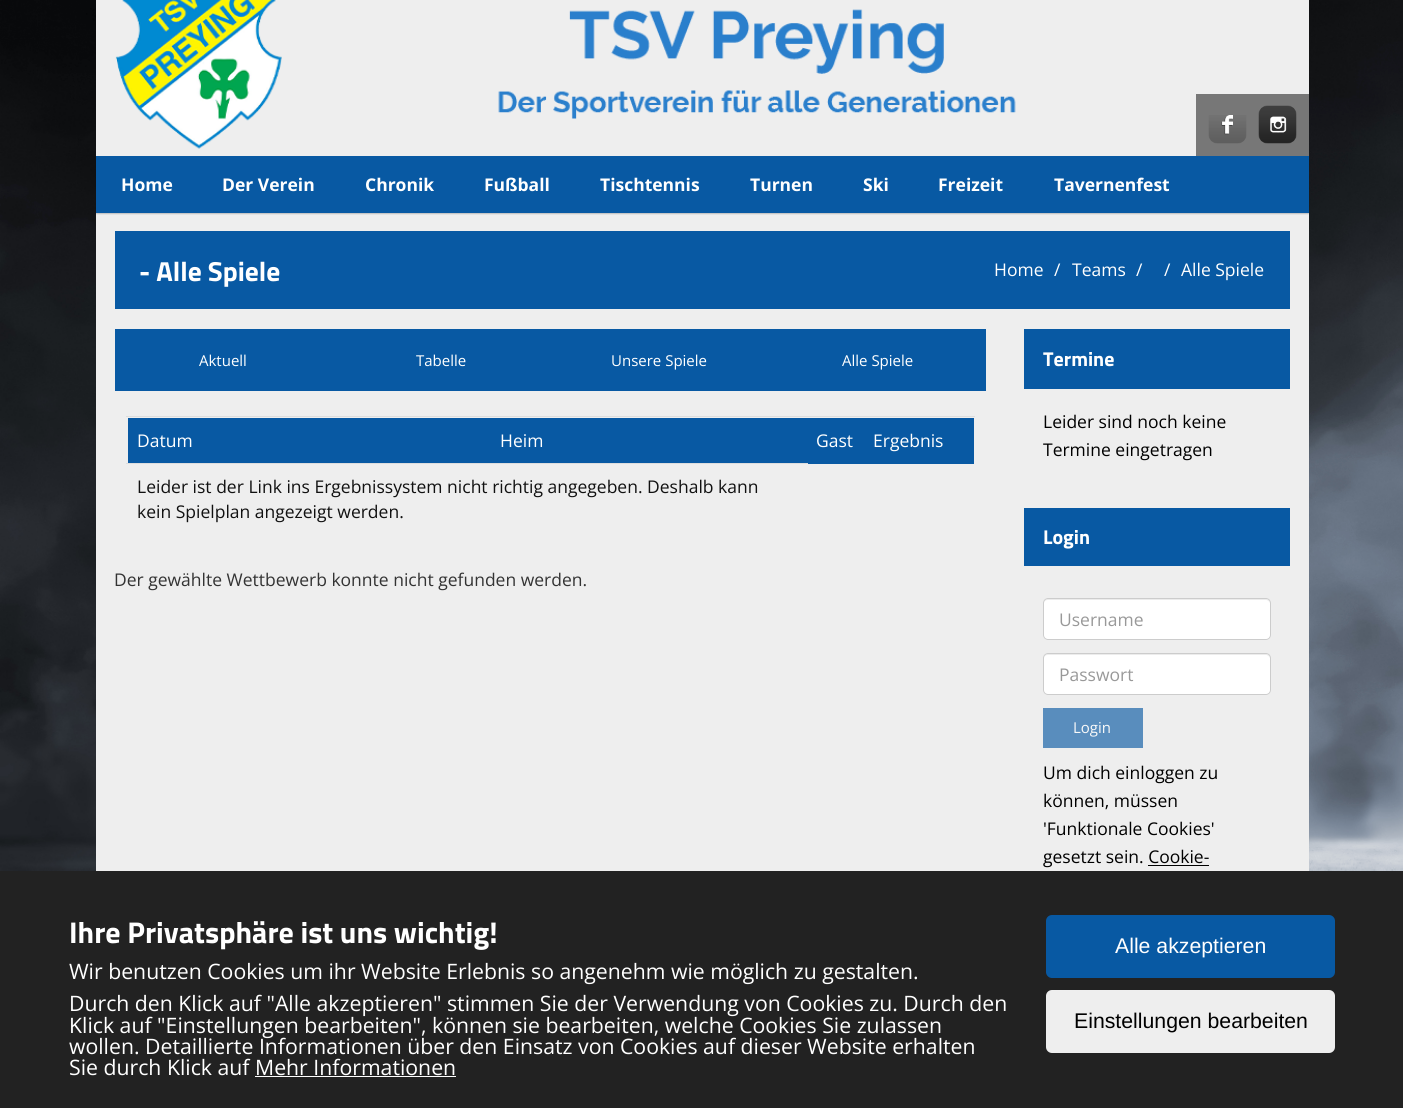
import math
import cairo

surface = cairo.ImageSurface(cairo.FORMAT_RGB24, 1403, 1108)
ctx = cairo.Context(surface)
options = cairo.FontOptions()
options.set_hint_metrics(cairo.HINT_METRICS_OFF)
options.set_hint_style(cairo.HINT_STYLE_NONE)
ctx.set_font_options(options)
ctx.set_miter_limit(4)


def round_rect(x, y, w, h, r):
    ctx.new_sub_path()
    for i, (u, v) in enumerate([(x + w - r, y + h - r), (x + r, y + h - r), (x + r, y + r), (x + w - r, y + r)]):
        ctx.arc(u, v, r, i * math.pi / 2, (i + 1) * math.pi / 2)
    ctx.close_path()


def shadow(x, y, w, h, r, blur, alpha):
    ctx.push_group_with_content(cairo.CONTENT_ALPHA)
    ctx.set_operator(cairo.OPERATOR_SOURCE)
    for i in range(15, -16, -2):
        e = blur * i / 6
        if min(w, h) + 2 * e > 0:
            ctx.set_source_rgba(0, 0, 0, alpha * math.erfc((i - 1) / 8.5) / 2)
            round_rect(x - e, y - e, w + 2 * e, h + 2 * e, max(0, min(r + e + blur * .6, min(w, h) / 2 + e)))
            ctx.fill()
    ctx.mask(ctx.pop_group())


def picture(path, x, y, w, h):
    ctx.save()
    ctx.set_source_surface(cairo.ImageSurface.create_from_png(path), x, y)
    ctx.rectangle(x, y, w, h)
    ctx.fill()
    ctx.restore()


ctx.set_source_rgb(1, 1, 1)
ctx.paint()
picture("img1.png", 0, 0, 1403, 871)
ctx.set_source_rgb(0.933, 0.933, 0.933)
ctx.rectangle(96, 0, 1213, 871)
ctx.fill()
picture("img2.png", 115, 0, 901, 149)
ctx.set_source_rgb(0.467, 0.467, 0.467)
ctx.rectangle(1196, 94, 113, 62)
ctx.fill()
picture("img3.png", 1208, 115, 39, 29)
picture("img4.png", 1258, 105, 39, 39)
ctx.set_source_rgb(0, 0, 0)
shadow(96, 158, 1213, 56, 0, 0.5, 0.2)
ctx.set_source_rgb(0.035, 0.349, 0.639)
ctx.rectangle(96, 156, 1213, 57)
ctx.fill()
ctx.select_font_face("Open Sans", cairo.FONT_SLANT_NORMAL, cairo.FONT_WEIGHT_BOLD)
ctx.set_font_size(17.5)
ctx.set_source_rgb(1, 1, 1)
ctx.move_to(121, 191)
ctx.show_text("Home")
ctx.move_to(222, 191)
ctx.show_text("Der Verein")
ctx.move_to(365, 191)
ctx.show_text("Chronik")
ctx.move_to(484, 191)
ctx.show_text("Fußball")
ctx.move_to(600, 191)
ctx.show_text("Tischtennis")
ctx.move_to(750, 191)
ctx.show_text("Turnen")
ctx.move_to(863, 191)
ctx.show_text("Ski")
ctx.move_to(938, 191)
ctx.show_text("Freizeit")
ctx.move_to(1054, 191)
ctx.show_text("Tavernenfest")
ctx.set_source_rgb(0.035, 0.349, 0.639)
ctx.rectangle(115, 231, 1175, 78)
ctx.fill()
ctx.select_font_face("Titillium Web", cairo.FONT_SLANT_NORMAL, cairo.FONT_WEIGHT_BOLD)
ctx.set_font_size(27.5)
ctx.set_source_rgb(1, 1, 1)
ctx.move_to(139, 281)
ctx.show_text("- Alle Spiele")
ctx.select_font_face("Open Sans")
ctx.set_font_size(17.5)
ctx.move_to(994, 276)
ctx.show_text("Home")
ctx.move_to(1054, 276)
ctx.show_text("/")
ctx.move_to(1072, 276)
ctx.show_text("Teams")
ctx.move_to(1136, 276)
ctx.show_text("/")
ctx.move_to(1164, 276)
ctx.show_text("/")
ctx.move_to(1181, 276)
ctx.show_text("Alle Spiele")
ctx.set_source_rgb(0.035, 0.349, 0.639)
ctx.rectangle(115, 329, 871, 62)
ctx.fill()
ctx.set_font_size(15)
ctx.set_source_rgb(1, 1, 1)
ctx.move_to(199, 366)
ctx.show_text("Aktuell")
ctx.move_to(416, 366)
ctx.show_text("Tabelle")
ctx.move_to(611, 366)
ctx.show_text("Unsere Spiele")
ctx.move_to(842, 366)
ctx.show_text("Alle Spiele")
ctx.set_source_rgb(0.867, 0.867, 0.867)
ctx.rectangle(126, 416, 849, 1)
ctx.fill()
ctx.set_source_rgb(0.035, 0.349, 0.639)
ctx.rectangle(128, 418, 678, 45)
ctx.fill()
ctx.set_font_size(17.5)
ctx.set_source_rgb(1, 1, 1)
ctx.move_to(137, 447)
ctx.show_text("Datum")
ctx.move_to(500, 447)
ctx.show_text("Heim")
ctx.set_source_rgb(0.035, 0.349, 0.639)
ctx.rectangle(806, 418, 168, 46)
ctx.fill()
ctx.set_source_rgb(1, 1, 1)
ctx.move_to(816, 447)
ctx.show_text("Gast")
ctx.move_to(873, 447)
ctx.show_text("Ergebnis")
ctx.set_source_rgb(0.867, 0.867, 0.867)
ctx.rectangle(126, 463, 682, 1)
ctx.fill()
ctx.set_source_rgb(0.067, 0.067, 0.067)
ctx.move_to(137, 493)
ctx.show_text("Leider ist der Link ins Ergebnissystem nicht richtig angegeben. Deshalb kann")
ctx.move_to(137, 518)
ctx.show_text("kein Spielplan angezeigt werden.")
ctx.set_source_rgb(0.2, 0.2, 0.2)
ctx.move_to(114, 586)
ctx.show_text("Der gewählte Wettbewerb konnte nicht gefunden werden.")
ctx.set_source_rgb(0.035, 0.349, 0.639)
ctx.rectangle(1024, 329, 266, 60)
ctx.fill()
ctx.select_font_face("Titillium Web", cairo.FONT_SLANT_NORMAL, cairo.FONT_WEIGHT_BOLD)
ctx.set_font_size(20)
ctx.set_source_rgb(1, 1, 1)
ctx.move_to(1043, 366)
ctx.show_text("Termine")
ctx.select_font_face("Open Sans")
ctx.set_font_size(17.5)
ctx.set_source_rgb(0, 0, 0)
ctx.move_to(1043, 428)
ctx.show_text("Leider sind noch keine")
ctx.move_to(1043, 456)
ctx.show_text("Termine eingetragen")
ctx.set_source_rgb(0.035, 0.349, 0.639)
ctx.rectangle(1024, 508, 266, 58)
ctx.fill()
ctx.select_font_face("Titillium Web", cairo.FONT_SLANT_NORMAL, cairo.FONT_WEIGHT_BOLD)
ctx.set_font_size(20)
ctx.set_source_rgb(1, 1, 1)
ctx.move_to(1043, 544)
ctx.show_text("Login")
round_rect(1043, 598, 228, 42, 5)
ctx.fill()
ctx.set_source_rgb(0.925, 0.925, 0.925)
ctx.new_path()
ctx.move_to(1048, 600)
ctx.line_to(1266, 600)
ctx.curve_to(1268, 600, 1270, 602, 1270, 604)
ctx.curve_to(1270, 601, 1269, 599, 1266, 599)
ctx.line_to(1048, 599)
ctx.curve_to(1045, 599, 1044, 601, 1044, 604)
ctx.curve_to(1044, 602, 1045, 600, 1048, 600)
ctx.close_path()
ctx.fill()
round_rect(1043.5, 598.5, 227, 41, 4.5)
ctx.set_source_rgb(0.8, 0.8, 0.8)
ctx.set_line_width(1)
ctx.stroke()
ctx.select_font_face("Open Sans")
ctx.set_font_size(17.5)
ctx.set_source_rgb(0.6, 0.6, 0.6)
ctx.move_to(1059, 626)
ctx.show_text("Username")
ctx.set_source_rgb(1, 1, 1)
round_rect(1043, 653, 228, 42, 5)
ctx.fill()
ctx.set_source_rgb(0.925, 0.925, 0.925)
ctx.new_path()
ctx.move_to(1048, 655)
ctx.line_to(1266, 655)
ctx.curve_to(1268, 655, 1270, 657, 1270, 659)
ctx.curve_to(1270, 656, 1269, 654, 1266, 654)
ctx.line_to(1048, 654)
ctx.curve_to(1045, 654, 1044, 656, 1044, 659)
ctx.curve_to(1044, 657, 1045, 655, 1048, 655)
ctx.close_path()
ctx.fill()
round_rect(1043.5, 653.5, 227, 41, 4.5)
ctx.set_source_rgb(0.8, 0.8, 0.8)
ctx.stroke()
ctx.set_source_rgb(0.6, 0.6, 0.6)
ctx.move_to(1059, 681)
ctx.show_text("Passwort")
ctx.set_source_rgb(0.349, 0.553, 0.741)
ctx.rectangle(1043, 708, 100, 40)
ctx.fill()
ctx.set_font_size(15)
ctx.set_source_rgb(0.976, 0.976, 0.976)
ctx.move_to(1073, 733)
ctx.show_text("Login")
ctx.set_font_size(17.5)
ctx.set_source_rgb(0, 0, 0)
ctx.move_to(1043, 779)
ctx.show_text("Um dich einloggen zu")
ctx.move_to(1043, 807)
ctx.show_text("können, müssen")
ctx.move_to(1043, 835)
ctx.show_text("'Funktionale Cookies'")
ctx.move_to(1043, 863)
ctx.show_text("gesetzt sein. Cookie-")
ctx.rectangle(1148, 865, 61, 1)
ctx.fill()
ctx.set_source_rgb(0.133, 0.133, 0.133)
ctx.rectangle(0, 871, 1403, 237)
ctx.fill()
ctx.select_font_face("Titillium Web", cairo.FONT_SLANT_NORMAL, cairo.FONT_WEIGHT_BOLD)
ctx.set_font_size(30)
ctx.set_source_rgb(1, 1, 1)
ctx.move_to(69, 943)
ctx.show_text("Ihre Privatsphäre ist uns wichtig!")
ctx.select_font_face("Open Sans")
ctx.set_font_size(21.25)
ctx.move_to(69, 979)
ctx.show_text("Wir benutzen Cookies um ihr Website Erlebnis so angenehm wie möglich zu gestalten.")
ctx.move_to(69, 1011)
ctx.show_text("Durch den Klick auf \"Alle akzeptieren\" stimmen Sie der Verwendung von Cookies zu. Durch den")
ctx.move_to(69, 1033)
ctx.show_text("Klick auf \"Einstellungen bearbeiten\", können sie bearbeiten, welche Cookies Sie zulassen")
ctx.move_to(69, 1054)
ctx.show_text("wollen. Detaillierte Informationen über den Einsatz von Cookies auf dieser Website erhalten")
ctx.move_to(69, 1075)
ctx.show_text("Sie durch Klick auf Mehr Informationen")
ctx.rectangle(255, 1076, 201, 1)
ctx.fill()
ctx.set_source_rgb(0.035, 0.349, 0.639)
round_rect(1046, 915, 289, 63, 6)
ctx.fill()
ctx.select_font_face("Liberation Sans")
ctx.set_source_rgb(1, 1, 1)
ctx.move_to(1115, 953)
ctx.show_text("Alle akzeptieren")
ctx.set_source_rgb(0.933, 0.933, 0.933)
round_rect(1046, 990, 289, 63, 6)
ctx.fill()
ctx.set_source_rgb(0, 0, 0)
ctx.move_to(1074, 1028)
ctx.show_text("Einstellungen bearbeiten")
surface.write_to_png("page.png")
